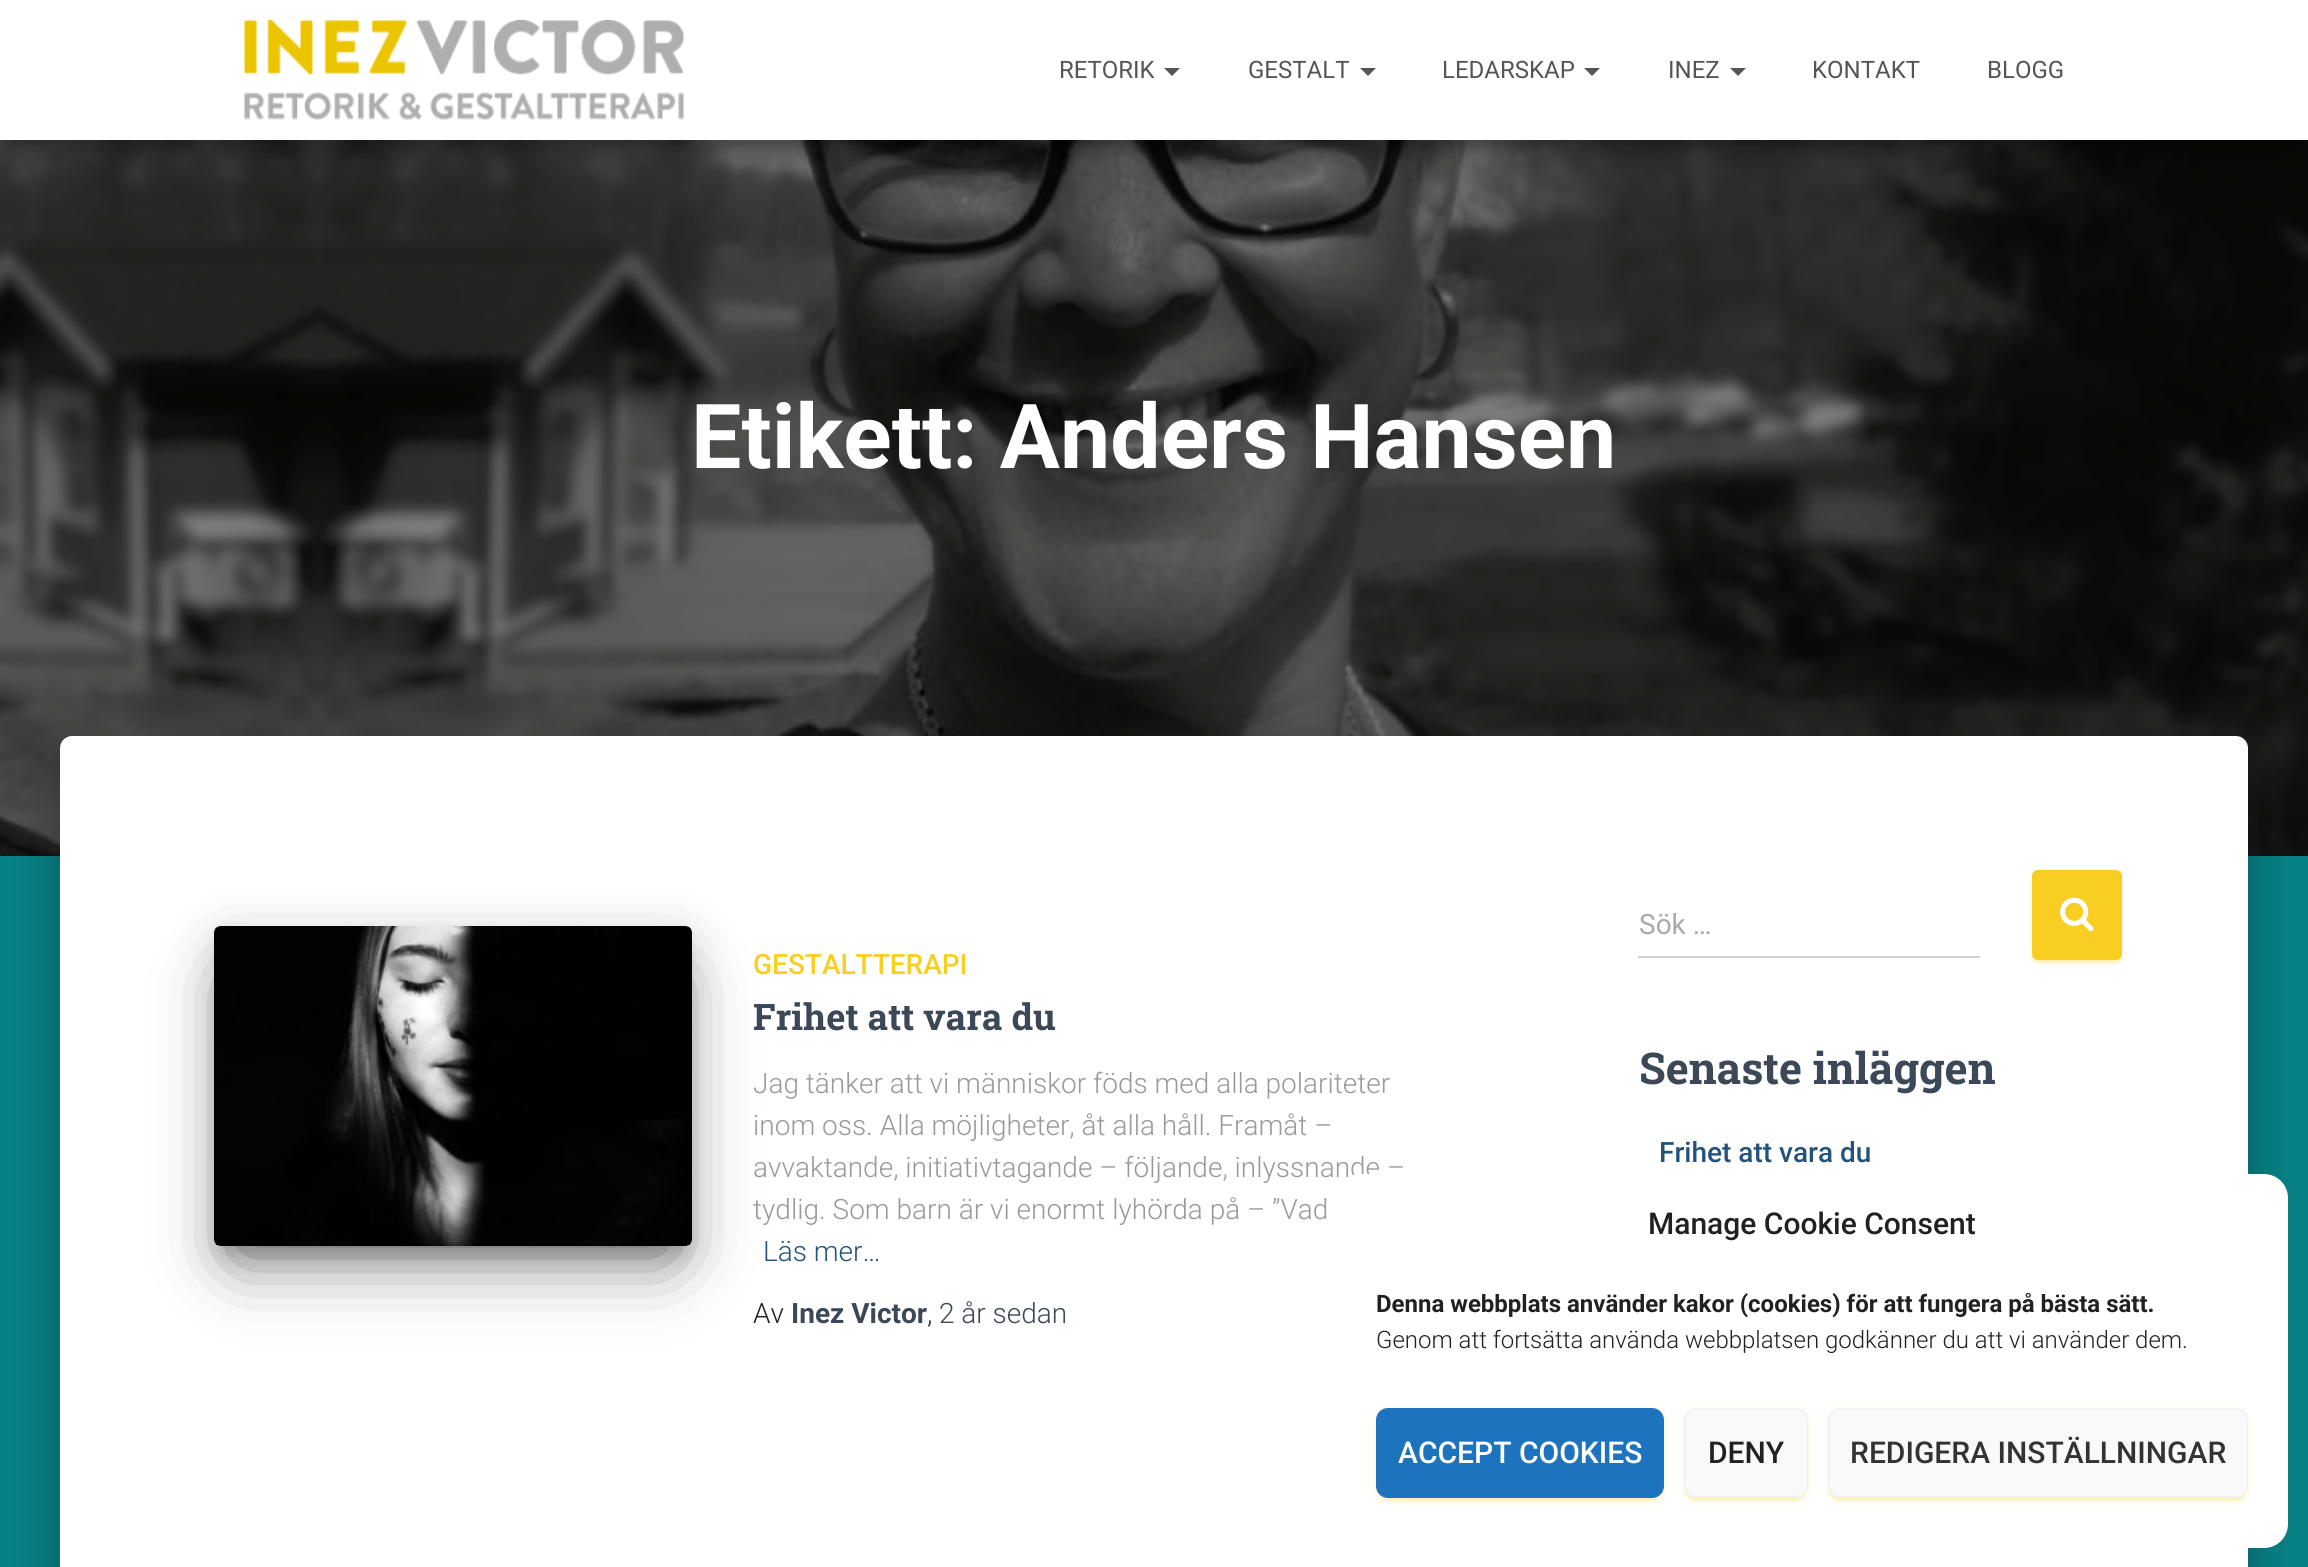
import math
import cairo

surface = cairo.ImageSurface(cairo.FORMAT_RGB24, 2308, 1567)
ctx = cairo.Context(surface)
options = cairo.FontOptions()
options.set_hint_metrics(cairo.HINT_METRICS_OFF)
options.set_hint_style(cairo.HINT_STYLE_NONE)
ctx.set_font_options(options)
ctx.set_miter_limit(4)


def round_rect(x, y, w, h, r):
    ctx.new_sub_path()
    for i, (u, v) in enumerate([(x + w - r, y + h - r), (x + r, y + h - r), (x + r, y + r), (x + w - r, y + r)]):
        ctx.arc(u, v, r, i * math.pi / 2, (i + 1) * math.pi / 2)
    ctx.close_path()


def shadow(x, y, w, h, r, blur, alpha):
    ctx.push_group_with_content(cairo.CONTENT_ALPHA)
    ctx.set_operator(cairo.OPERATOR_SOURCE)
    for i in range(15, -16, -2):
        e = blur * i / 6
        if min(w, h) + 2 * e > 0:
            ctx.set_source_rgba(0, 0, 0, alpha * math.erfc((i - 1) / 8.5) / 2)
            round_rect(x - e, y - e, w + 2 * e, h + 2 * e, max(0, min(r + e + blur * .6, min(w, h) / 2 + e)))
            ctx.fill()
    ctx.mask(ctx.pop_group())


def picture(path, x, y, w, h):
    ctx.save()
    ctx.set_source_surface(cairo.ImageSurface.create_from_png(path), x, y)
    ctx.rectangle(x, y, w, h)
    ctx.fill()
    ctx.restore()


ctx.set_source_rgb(0.031, 0.51, 0.529)
ctx.paint()
picture("img2.png", 0, 140, 2308, 716)
ctx.set_source_rgb(0, 0, 0)
shadow(10, 26, 2288, 120, 0, 10, 0.2)
shadow(0, 6, 2308, 140, 0, 20, 0.12)
shadow(24, 44, 2260, 92, 0, 20, 0.42)
ctx.set_source_rgb(1, 1, 1)
ctx.rectangle(0, 0, 2308, 140)
ctx.fill()
picture("img1.png", 244, 20, 440, 100)
ctx.select_font_face("Roboto")
ctx.set_font_size(24)
ctx.set_source_rgb(0.333, 0.333, 0.333)
ctx.move_to(1059, 78)
ctx.show_text("RETORIK")
ctx.new_path()
ctx.move_to(1164, 68)
ctx.line_to(1180, 68)
ctx.line_to(1172, 76)
ctx.close_path()
ctx.fill()
ctx.move_to(1248, 78)
ctx.show_text("GESTALT")
ctx.new_path()
ctx.move_to(1360, 68)
ctx.line_to(1376, 68)
ctx.line_to(1368, 76)
ctx.close_path()
ctx.fill()
ctx.move_to(1442, 78)
ctx.show_text("LEDARSKAP")
ctx.new_path()
ctx.move_to(1584, 68)
ctx.line_to(1600, 68)
ctx.line_to(1592, 76)
ctx.close_path()
ctx.fill()
ctx.move_to(1668, 78)
ctx.show_text("INEZ")
ctx.new_path()
ctx.move_to(1730, 68)
ctx.line_to(1746, 68)
ctx.line_to(1738, 76)
ctx.close_path()
ctx.fill()
ctx.move_to(1812, 78)
ctx.show_text("KONTAKT")
ctx.move_to(1987, 78)
ctx.show_text("BLOGG")
ctx.select_font_face("Roboto", cairo.FONT_SLANT_NORMAL, cairo.FONT_WEIGHT_BOLD)
ctx.set_font_size(89.6)
ctx.set_source_rgb(1, 1, 1)
ctx.move_to(691, 468)
ctx.show_text("Etikett: Anders Hansen")
ctx.set_source_rgb(0, 0, 0)
shadow(70, 762, 2168, 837, 2, 10, 0.2)
shadow(50, 738, 2208, 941, 22, 30, 0.12)
shadow(56, 764, 2196, 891, 16, 24, 0.14)
ctx.set_source_rgb(1, 1, 1)
ctx.new_path()
ctx.move_to(72, 736)
ctx.line_to(2236, 736)
ctx.curve_to(2242.5, 736, 2248, 741.5, 2248, 748)
ctx.line_to(2248, 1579)
ctx.line_to(60, 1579)
ctx.line_to(60, 748)
ctx.curve_to(60, 741.5, 65.5, 736, 72, 736)
ctx.close_path()
ctx.fill()
ctx.set_source_rgb(0, 0, 0)
shadow(224, 952, 458, 300, 0, 10, 0.2)
shadow(214, 934, 478, 320, 6, 25, 0.12)
shadow(238, 982, 430, 272, 0, 38, 0.56)
picture("img3.png", 214, 926, 478, 320)
ctx.select_font_face("Roboto Medium")
ctx.set_font_size(28)
ctx.set_source_rgb(0.976, 0.808, 0.133)
ctx.move_to(753, 974)
ctx.show_text("GESTALTTERAPI")
ctx.select_font_face("Roboto Slab", cairo.FONT_SLANT_NORMAL, cairo.FONT_WEIGHT_BOLD)
ctx.set_font_size(36.5)
ctx.set_source_rgb(0.235, 0.282, 0.345)
ctx.move_to(753, 1030)
ctx.show_text("Frihet att vara du")
ctx.select_font_face("Roboto Light")
ctx.set_font_size(28)
ctx.set_source_rgb(0.6, 0.6, 0.6)
ctx.move_to(753, 1093)
ctx.show_text("Jag tänker att vi människor föds med alla polariteter")
ctx.move_to(753, 1135)
ctx.show_text("inom oss. Alla möjligheter, åt alla håll. Framåt –")
ctx.move_to(753, 1177)
ctx.show_text("avvaktande, initiativtagande – följande, inlyssnande –")
ctx.move_to(753, 1219)
ctx.show_text("tydlig. Som barn är vi enormt lyhörda på – ”Vad")
ctx.set_source_rgb(0.137, 0.322, 0.486)
ctx.move_to(763, 1261)
ctx.show_text("Läs mer…")
ctx.set_source_rgb(0.129, 0.129, 0.129)
ctx.move_to(753, 1323)
ctx.show_text("Av")
ctx.select_font_face("Roboto", cairo.FONT_SLANT_NORMAL, cairo.FONT_WEIGHT_BOLD)
ctx.set_source_rgb(0.235, 0.282, 0.345)
ctx.move_to(791, 1323)
ctx.show_text("Inez Victor")
ctx.select_font_face("Roboto Light")
ctx.set_source_rgb(0.129, 0.129, 0.129)
ctx.move_to(927, 1323)
ctx.show_text(",")
ctx.set_source_rgb(0.235, 0.282, 0.345)
ctx.move_to(939, 1323)
ctx.show_text("2 år sedan")
ctx.save()
ctx.rectangle(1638, 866, 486, 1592)
ctx.clip()
ctx.set_source_rgb(0.976, 0.808, 0.133)
shadow(2032, 872, 90, 90, 6, 5, 0.12)
ctx.restore()
ctx.set_source_rgb(0.976, 0.808, 0.133)
shadow(2036, 880, 82, 82, 2, 1, 0.2)
shadow(2032, 874, 90, 90, 6, 2, 0.14)
ctx.set_source_rgb(0.976, 0.808, 0.133)
round_rect(2032, 870, 90, 90, 6)
ctx.fill()
ctx.select_font_face("Roboto")
ctx.set_source_rgb(0.667, 0.667, 0.667)
ctx.move_to(1639, 934)
ctx.show_text("Sök …")
ctx.set_source_rgb(0.824, 0.824, 0.824)
ctx.rectangle(1638, 956, 342, 2)
ctx.fill()
picture("img4.png", 2060, 897, 34, 35)
ctx.select_font_face("Roboto Slab", cairo.FONT_SLANT_NORMAL, cairo.FONT_WEIGHT_BOLD)
ctx.set_font_size(43.75)
ctx.set_source_rgb(0.235, 0.282, 0.345)
ctx.move_to(1639, 1084)
ctx.show_text("Senaste inläggen")
ctx.select_font_face("Roboto Medium")
ctx.set_font_size(28)
ctx.set_source_rgb(0.137, 0.322, 0.486)
ctx.move_to(1659, 1162)
ctx.show_text("Frihet att vara du")
ctx.set_source_rgb(1, 1, 1)
round_rect(1336, 1174, 952, 374, 24)
ctx.fill()
ctx.set_font_size(30)
ctx.set_source_rgb(0.129, 0.129, 0.129)
ctx.move_to(1648, 1234)
ctx.show_text("Manage Cookie Consent")
ctx.select_font_face("Roboto", cairo.FONT_SLANT_NORMAL, cairo.FONT_WEIGHT_BOLD)
ctx.set_font_size(24)
ctx.move_to(1376, 1312)
ctx.show_text("Denna webbplats använder kakor (cookies) för att fungera på bästa sätt.")
ctx.select_font_face("Roboto Light")
ctx.move_to(1376, 1348)
ctx.show_text("Genom att fortsätta använda webbplatsen godkänner du att vi använder dem.")
ctx.set_source_rgb(0.976, 0.808, 0.133)
shadow(1376, 1410, 288, 90, 12, 5, 0.12)
shadow(1380, 1418, 280, 82, 8, 1, 0.2)
shadow(1376, 1412, 288, 90, 12, 2, 0.14)
ctx.set_source_rgb(0.118, 0.451, 0.745)
round_rect(1377, 1409, 286, 88, 11)
ctx.fill_preserve()
ctx.stroke()
ctx.select_font_face("Roboto Medium")
ctx.set_font_size(30)
ctx.set_source_rgb(1, 1, 1)
ctx.move_to(1398, 1463)
ctx.show_text("ACCEPT COOKIES")
ctx.set_source_rgb(0.976, 0.808, 0.133)
shadow(1684, 1410, 124, 90, 12, 5, 0.12)
shadow(1688, 1418, 116, 82, 8, 1, 0.2)
shadow(1684, 1412, 124, 90, 12, 2, 0.14)
ctx.set_source_rgb(0.976, 0.976, 0.976)
round_rect(1685, 1409, 122, 88, 11)
ctx.fill_preserve()
ctx.set_source_rgb(0.949, 0.949, 0.949)
ctx.stroke()
ctx.set_source_rgb(0.129, 0.129, 0.129)
ctx.move_to(1708, 1463)
ctx.show_text("DENY")
ctx.set_source_rgb(0.976, 0.808, 0.133)
shadow(1828, 1410, 420, 90, 12, 5, 0.12)
shadow(1832, 1418, 412, 82, 8, 1, 0.2)
shadow(1828, 1412, 420, 90, 12, 2, 0.14)
ctx.set_source_rgb(0.976, 0.976, 0.976)
round_rect(1829, 1409, 418, 88, 11)
ctx.fill_preserve()
ctx.set_source_rgb(0.949, 0.949, 0.949)
ctx.stroke()
ctx.set_source_rgb(0.2, 0.2, 0.2)
ctx.move_to(1850, 1463)
ctx.show_text("REDIGERA INSTÄLLNINGAR")
surface.write_to_png("page.png")
